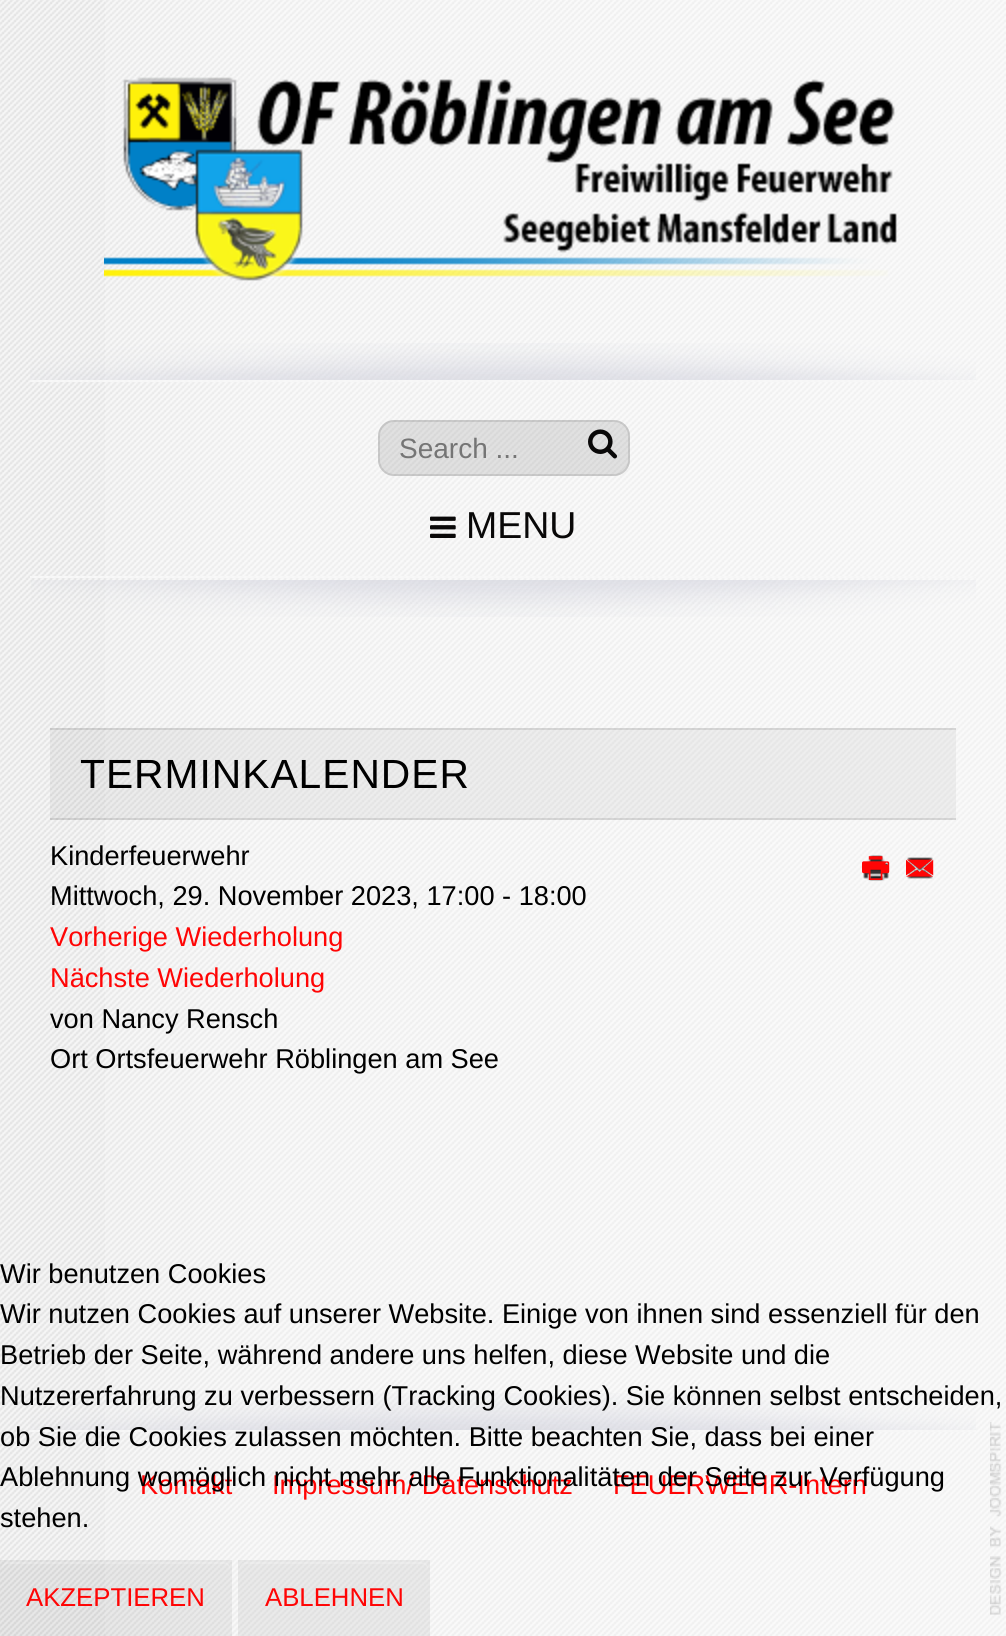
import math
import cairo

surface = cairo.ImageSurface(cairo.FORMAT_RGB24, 1006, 1636)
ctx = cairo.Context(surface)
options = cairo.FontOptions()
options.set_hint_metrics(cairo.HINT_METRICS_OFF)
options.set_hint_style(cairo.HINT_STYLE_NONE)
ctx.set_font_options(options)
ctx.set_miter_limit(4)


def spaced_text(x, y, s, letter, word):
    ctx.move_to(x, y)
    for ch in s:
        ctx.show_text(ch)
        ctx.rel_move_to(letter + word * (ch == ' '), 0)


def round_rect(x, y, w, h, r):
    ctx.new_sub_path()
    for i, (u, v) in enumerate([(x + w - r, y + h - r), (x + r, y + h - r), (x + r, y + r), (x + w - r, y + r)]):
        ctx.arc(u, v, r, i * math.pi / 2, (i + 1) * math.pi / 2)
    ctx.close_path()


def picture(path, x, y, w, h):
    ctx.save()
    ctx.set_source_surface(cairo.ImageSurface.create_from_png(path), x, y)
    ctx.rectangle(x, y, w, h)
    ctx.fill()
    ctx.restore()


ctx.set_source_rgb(0.969, 0.969, 0.969)
ctx.paint()
picture("img1.png", 0, 0, 1006, 1636)
picture("img2.png", 105, 0, 901, 1636)
picture("img3.png", 30, 343, 946, 37)
ctx.set_source_rgb(0.965, 0.965, 0.965)
ctx.rectangle(30, 380, 946, 2)
ctx.fill()
picture("img4.png", 104, 77, 793, 204)
picture("img5.png", 31, 580, 945, 37)
ctx.rectangle(30, 576, 946, 2)
ctx.fill()
ctx.set_source_rgba(0, 0, 0, 0.1)
round_rect(378, 420, 252, 56, 16)
ctx.fill()
round_rect(379, 421, 250, 54, 15)
ctx.stroke()
ctx.select_font_face("Liberation Sans")
ctx.set_font_size(28)
ctx.set_source_rgb(0.459, 0.459, 0.459)
ctx.move_to(399, 458)
ctx.show_text("Search ...")
picture("img6.png", 588, 429, 29, 30)
picture("img7.png", 430, 516, 26, 22)
ctx.set_font_size(37.5)
ctx.set_source_rgb(0.039, 0.035, 0.035)
ctx.move_to(466, 538)
ctx.show_text("MENU")
picture("img8.png", 30, 1393, 946, 37)
ctx.set_source_rgba(0, 0, 0, 0.05)
ctx.rectangle(50, 728, 906, 92)
ctx.fill()
ctx.set_source_rgba(0, 0, 0, 0.1)
ctx.rectangle(50, 728, 906, 2)
ctx.fill()
ctx.rectangle(50, 818, 906, 2)
ctx.fill()
ctx.set_font_size(40.75)
ctx.set_source_rgb(0, 0, 0)
spaced_text(80, 788, "TERMINKALENDER", 1, 0)
picture("img9.png", 863, 855, 26, 26)
picture("img10.png", 862, 856, 28, 24)
picture("img11.png", 907, 857, 26, 22)
picture("img12.png", 906, 859, 28, 18)
ctx.set_font_size(27.2)
ctx.move_to(50, 865)
ctx.show_text("Kinderfeuerwehr")
ctx.move_to(50, 905)
ctx.show_text("Mittwoch, 29. November 2023, 17:00 - 18:00")
ctx.set_source_rgb(1, 0.02, 0.02)
ctx.move_to(50, 946)
ctx.show_text("Vorherige Wiederholung")
ctx.move_to(50, 987)
ctx.show_text("Nächste Wiederholung")
ctx.set_source_rgb(0, 0, 0)
ctx.move_to(50, 1028)
ctx.show_text("von Nancy Rensch")
ctx.move_to(50, 1068)
ctx.show_text("Ort Ortsfeuerwehr Röblingen am See")
ctx.set_source_rgb(0.965, 0.965, 0.965)
ctx.rectangle(30, 1430, 946, 2)
ctx.fill()
ctx.set_source_rgb(1, 0.02, 0.02)
ctx.move_to(140, 1494)
ctx.show_text("Kontakt")
ctx.move_to(272, 1494)
ctx.show_text("Impressum/ Datenschutz")
ctx.move_to(613, 1494)
ctx.show_text("FEUERWEHR-Intern")
ctx.set_source_rgb(0, 0, 0)
ctx.move_to(0, 1283)
ctx.show_text("Wir benutzen Cookies")
ctx.move_to(0, 1323)
ctx.show_text("Wir nutzen Cookies auf unserer Website. Einige von ihnen sind essenziell für den")
ctx.move_to(0, 1364)
ctx.show_text("Betrieb der Seite, während andere uns helfen, diese Website und die")
ctx.move_to(0, 1405)
ctx.show_text("Nutzererfahrung zu verbessern (Tracking Cookies). Sie können selbst entscheiden,")
ctx.move_to(0, 1446)
ctx.show_text("ob Sie die Cookies zulassen möchten. Bitte beachten Sie, dass bei einer")
ctx.move_to(0, 1486)
ctx.show_text("Ablehnung womöglich nicht mehr alle Funktionalitäten der Seite zur Verfügung")
ctx.move_to(0, 1527)
ctx.show_text("stehen.")
ctx.set_source_rgba(0, 0, 0, 0.06)
ctx.rectangle(0, 1560, 232, 76)
ctx.fill()
ctx.set_source_rgba(1, 1, 1, 0.2)
ctx.new_path()
ctx.move_to(8, 1564)
ctx.line_to(224, 1564)
ctx.curve_to(227, 1564, 230, 1567, 230, 1570)
ctx.line_to(230, 1568)
ctx.curve_to(230, 1565, 227, 1562, 224, 1562)
ctx.line_to(8, 1562)
ctx.curve_to(5, 1562, 2, 1565, 2, 1568)
ctx.line_to(2, 1570)
ctx.curve_to(2, 1567, 5, 1564, 8, 1564)
ctx.close_path()
ctx.fill()
ctx.set_font_size(25.75)
ctx.set_source_rgb(1, 0.02, 0.02)
ctx.move_to(26, 1606)
ctx.show_text("AKZEPTIEREN")
ctx.set_source_rgba(0, 0, 0, 0.06)
ctx.rectangle(238, 1560, 192, 76)
ctx.fill()
ctx.set_source_rgba(1, 1, 1, 0.2)
ctx.new_path()
ctx.move_to(246, 1564)
ctx.line_to(422, 1564)
ctx.curve_to(425, 1564, 428, 1567, 428, 1570)
ctx.line_to(428, 1568)
ctx.curve_to(428, 1565, 425, 1562, 422, 1562)
ctx.line_to(246, 1562)
ctx.curve_to(243, 1562, 240, 1565, 240, 1568)
ctx.line_to(240, 1570)
ctx.curve_to(240, 1567, 243, 1564, 246, 1564)
ctx.close_path()
ctx.fill()
ctx.set_source_rgb(1, 0.02, 0.02)
ctx.move_to(265, 1606)
ctx.show_text("ABLEHNEN")
picture("img13.png", 990, 1422, 12, 193)
surface.write_to_png("page.png")
